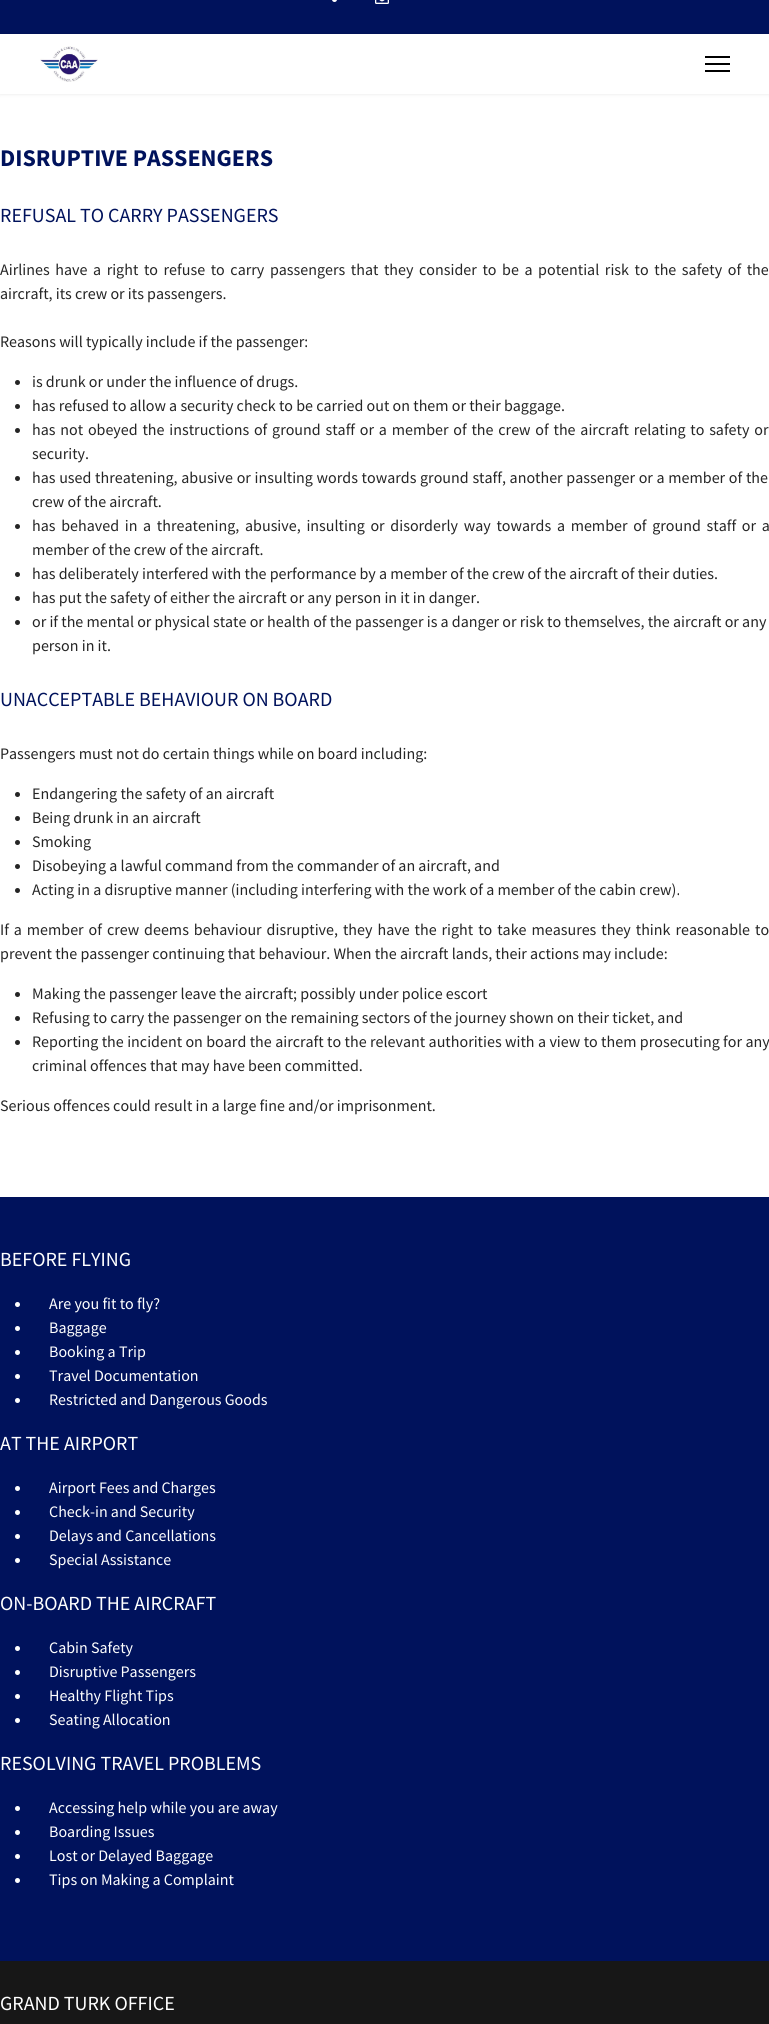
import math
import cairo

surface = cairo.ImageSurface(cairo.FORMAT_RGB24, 769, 2024)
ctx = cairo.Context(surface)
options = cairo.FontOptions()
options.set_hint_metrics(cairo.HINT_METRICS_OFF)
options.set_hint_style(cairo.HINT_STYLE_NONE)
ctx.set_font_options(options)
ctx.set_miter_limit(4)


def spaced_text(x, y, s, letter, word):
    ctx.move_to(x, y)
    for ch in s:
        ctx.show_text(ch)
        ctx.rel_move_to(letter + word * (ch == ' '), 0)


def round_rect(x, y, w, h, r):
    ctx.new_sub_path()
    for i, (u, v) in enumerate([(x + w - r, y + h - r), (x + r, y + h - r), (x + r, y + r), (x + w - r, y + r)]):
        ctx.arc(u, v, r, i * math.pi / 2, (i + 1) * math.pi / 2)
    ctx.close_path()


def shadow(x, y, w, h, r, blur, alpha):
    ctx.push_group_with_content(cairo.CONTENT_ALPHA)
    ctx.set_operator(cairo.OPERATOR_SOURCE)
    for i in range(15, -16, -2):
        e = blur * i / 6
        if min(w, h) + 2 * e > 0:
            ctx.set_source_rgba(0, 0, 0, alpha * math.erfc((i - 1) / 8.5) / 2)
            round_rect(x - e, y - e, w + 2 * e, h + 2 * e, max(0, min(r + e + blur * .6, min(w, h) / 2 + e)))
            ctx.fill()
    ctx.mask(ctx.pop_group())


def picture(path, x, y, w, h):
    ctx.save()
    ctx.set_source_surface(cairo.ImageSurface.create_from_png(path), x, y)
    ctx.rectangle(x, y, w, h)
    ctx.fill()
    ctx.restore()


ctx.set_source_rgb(1, 1, 1)
ctx.paint()
ctx.set_source_rgb(0, 0.071, 0.361)
ctx.rectangle(0, 0, 769, 34)
ctx.fill()
ctx.set_source_rgb(1, 1, 1)
ctx.arc(334.5, -0.5, 2.5, 0, 2 * math.pi)
ctx.fill()
picture("img1.png", 375, 0, 14, 4)
ctx.save()
ctx.set_fill_rule(cairo.FILL_RULE_EVEN_ODD)
ctx.new_path()
ctx.move_to(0, 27)
ctx.line_to(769, 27)
ctx.line_to(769, 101)
ctx.line_to(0, 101)
ctx.close_path()
ctx.move_to(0, 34)
ctx.line_to(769, 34)
ctx.line_to(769, 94)
ctx.line_to(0, 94)
ctx.close_path()
ctx.clip()
ctx.set_source_rgb(0, 0, 0)
shadow(0, 34, 769, 60, 0, 2, 0.1)
ctx.restore()
picture("img2.png", 40, 46, 58, 36)
ctx.set_source_rgb(0, 0, 0)
ctx.rectangle(705, 56, 25, 2)
ctx.fill()
ctx.rectangle(705, 63, 25, 2)
ctx.fill()
ctx.rectangle(705, 70, 25, 2)
ctx.fill()
ctx.select_font_face("Source Sans Pro", cairo.FONT_SLANT_NORMAL, cairo.FONT_WEIGHT_BOLD)
ctx.set_font_size(24)
ctx.set_source_rgb(0, 0.071, 0.361)
ctx.move_to(0, 166)
ctx.show_text("DISRUPTIVE PASSENGERS")
ctx.select_font_face("Source Sans Pro")
ctx.set_font_size(20)
ctx.move_to(0, 222)
ctx.show_text("REFUSAL TO CARRY PASSENGERS")
ctx.set_font_size(16)
ctx.set_source_rgb(0.145, 0.145, 0.145)
spaced_text(0, 275, "Airlines have a right to refuse to carry passengers that they consider to be a potential risk to the safety of the", 0, 2.4)
ctx.move_to(0, 299)
ctx.show_text("aircraft, its crew or its passengers.")
ctx.move_to(0, 347)
ctx.show_text("Reasons will typically include if the passenger:")
ctx.new_path()
ctx.arc(17.5, 382.5, 2.5, 0, 2 * math.pi)
ctx.fill()
ctx.move_to(32, 387)
ctx.show_text("is drunk or under the influence of drugs.")
ctx.new_path()
ctx.arc(17.5, 406.5, 2.5, 0, 2 * math.pi)
ctx.fill()
ctx.move_to(32, 411)
ctx.show_text("has refused to allow a security check to be carried out on them or their baggage.")
ctx.new_path()
ctx.arc(17.5, 430.5, 2.5, 0, 2 * math.pi)
ctx.fill()
spaced_text(32, 435, "has not obeyed the instructions of ground staff or a member of the crew of the aircraft relating to safety or", 0, 1.6)
ctx.move_to(32, 459)
ctx.show_text("security.")
ctx.new_path()
ctx.arc(17.5, 478.5, 2.5, 0, 2 * math.pi)
ctx.fill()
spaced_text(32, 483, "has used threatening, abusive or insulting words towards ground staff, another passenger or a member of the", 0, 0.5)
ctx.move_to(32, 507)
ctx.show_text("crew of the aircraft.")
ctx.new_path()
ctx.arc(17.5, 526.5, 2.5, 0, 2 * math.pi)
ctx.fill()
spaced_text(32, 531, "has behaved in a threatening, abusive, insulting or disorderly way towards a member of ground staff or a", 0, 2.5)
ctx.move_to(32, 555)
ctx.show_text("member of the crew of the aircraft.")
ctx.new_path()
ctx.arc(17.5, 574.5, 2.5, 0, 2 * math.pi)
ctx.fill()
ctx.move_to(32, 579)
ctx.show_text("has deliberately interfered with the performance by a member of the crew of the aircraft of their duties.")
ctx.new_path()
ctx.arc(17.5, 598.5, 2.5, 0, 2 * math.pi)
ctx.fill()
ctx.move_to(32, 603)
ctx.show_text("has put the safety of either the aircraft or any person in it in danger.")
ctx.new_path()
ctx.arc(17.5, 622.5, 2.5, 0, 2 * math.pi)
ctx.fill()
ctx.move_to(32, 627)
ctx.show_text("or if the mental or physical state or health of the passenger is a danger or risk to themselves, the aircraft or any")
ctx.move_to(32, 651)
ctx.show_text("person in it.")
ctx.set_font_size(20)
ctx.set_source_rgb(0, 0.071, 0.361)
ctx.move_to(0, 706)
ctx.show_text("UNACCEPTABLE BEHAVIOUR ON BOARD")
ctx.set_font_size(16)
ctx.set_source_rgb(0.145, 0.145, 0.145)
ctx.move_to(0, 759)
ctx.show_text("Passengers must not do certain things while on board including:")
ctx.new_path()
ctx.arc(17.5, 794.5, 2.5, 0, 2 * math.pi)
ctx.fill()
ctx.move_to(32, 799)
ctx.show_text("Endangering the safety of an aircraft")
ctx.new_path()
ctx.arc(17.5, 818.5, 2.5, 0, 2 * math.pi)
ctx.fill()
ctx.move_to(32, 823)
ctx.show_text("Being drunk in an aircraft")
ctx.new_path()
ctx.arc(17.5, 842.5, 2.5, 0, 2 * math.pi)
ctx.fill()
ctx.move_to(32, 847)
ctx.show_text("Smoking")
ctx.new_path()
ctx.arc(17.5, 866.5, 2.5, 0, 2 * math.pi)
ctx.fill()
ctx.move_to(32, 871)
ctx.show_text("Disobeying a lawful command from the commander of an aircraft, and")
ctx.new_path()
ctx.arc(17.5, 890.5, 2.5, 0, 2 * math.pi)
ctx.fill()
ctx.move_to(32, 895)
ctx.show_text("Acting in a disruptive manner (including interfering with the work of a member of the cabin crew).")
spaced_text(0, 935, "If a member of crew deems behaviour disruptive, they have the right to take measures they think reasonable to", 0, 1.75)
ctx.move_to(0, 959)
ctx.show_text("prevent the passenger continuing that behaviour. When the aircraft lands, their actions may include:")
ctx.new_path()
ctx.arc(17.5, 994.5, 2.5, 0, 2 * math.pi)
ctx.fill()
ctx.move_to(32, 999)
ctx.show_text("Making the passenger leave the aircraft; possibly under police escort")
ctx.new_path()
ctx.arc(17.5, 1018.5, 2.5, 0, 2 * math.pi)
ctx.fill()
ctx.move_to(32, 1023)
ctx.show_text("Refusing to carry the passenger on the remaining sectors of the journey shown on their ticket, and")
ctx.new_path()
ctx.arc(17.5, 1042.5, 2.5, 0, 2 * math.pi)
ctx.fill()
spaced_text(32, 1047, "Reporting the incident on board the aircraft to the relevant authorities with a view to them prosecuting for any", 0, 0.2)
ctx.move_to(32, 1071)
ctx.show_text("criminal offences that may have been committed.")
ctx.move_to(0, 1111)
ctx.show_text("Serious offences could result in a large fine and/or imprisonment.")
ctx.set_source_rgb(0, 0.071, 0.361)
ctx.rectangle(0, 1197, 769, 764)
ctx.fill()
ctx.set_font_size(20)
ctx.set_source_rgb(1, 1, 1)
ctx.move_to(0, 1266)
ctx.show_text("BEFORE FLYING")
ctx.new_path()
ctx.arc(17.5, 1304.5, 2.5, 0, 2 * math.pi)
ctx.fill()
ctx.set_font_size(16)
ctx.move_to(49, 1309)
ctx.show_text("Are you fit to fly?")
ctx.new_path()
ctx.arc(17.5, 1328.5, 2.5, 0, 2 * math.pi)
ctx.fill()
ctx.move_to(49, 1333)
ctx.show_text("Baggage")
ctx.new_path()
ctx.arc(17.5, 1352.5, 2.5, 0, 2 * math.pi)
ctx.fill()
ctx.move_to(49, 1357)
ctx.show_text("Booking a Trip")
ctx.new_path()
ctx.arc(17.5, 1376.5, 2.5, 0, 2 * math.pi)
ctx.fill()
ctx.move_to(49, 1381)
ctx.show_text("Travel Documentation")
ctx.new_path()
ctx.arc(17.5, 1400.5, 2.5, 0, 2 * math.pi)
ctx.fill()
ctx.move_to(49, 1405)
ctx.show_text("Restricted and Dangerous Goods")
ctx.set_font_size(20)
ctx.move_to(0, 1450)
ctx.show_text("AT THE AIRPORT")
ctx.new_path()
ctx.arc(17.5, 1488.5, 2.5, 0, 2 * math.pi)
ctx.fill()
ctx.set_font_size(16)
ctx.move_to(49, 1493)
ctx.show_text("Airport Fees and Charges")
ctx.new_path()
ctx.arc(17.5, 1512.5, 2.5, 0, 2 * math.pi)
ctx.fill()
ctx.move_to(49, 1517)
ctx.show_text("Check-in and Security")
ctx.new_path()
ctx.arc(17.5, 1536.5, 2.5, 0, 2 * math.pi)
ctx.fill()
ctx.move_to(49, 1541)
ctx.show_text("Delays and Cancellations")
ctx.new_path()
ctx.arc(17.5, 1560.5, 2.5, 0, 2 * math.pi)
ctx.fill()
ctx.move_to(49, 1565)
ctx.show_text("Special Assistance")
ctx.set_font_size(20)
ctx.move_to(0, 1610)
ctx.show_text("ON-BOARD THE AIRCRAFT")
ctx.new_path()
ctx.arc(17.5, 1648.5, 2.5, 0, 2 * math.pi)
ctx.fill()
ctx.set_font_size(16)
ctx.move_to(49, 1653)
ctx.show_text("Cabin Safety")
ctx.new_path()
ctx.arc(17.5, 1672.5, 2.5, 0, 2 * math.pi)
ctx.fill()
ctx.move_to(49, 1677)
ctx.show_text("Disruptive Passengers")
ctx.new_path()
ctx.arc(17.5, 1696.5, 2.5, 0, 2 * math.pi)
ctx.fill()
ctx.move_to(49, 1701)
ctx.show_text("Healthy Flight Tips")
ctx.new_path()
ctx.arc(17.5, 1720.5, 2.5, 0, 2 * math.pi)
ctx.fill()
ctx.move_to(49, 1725)
ctx.show_text("Seating Allocation")
ctx.set_font_size(20)
ctx.move_to(0, 1770)
ctx.show_text("RESOLVING TRAVEL PROBLEMS")
ctx.new_path()
ctx.arc(17.5, 1808.5, 2.5, 0, 2 * math.pi)
ctx.fill()
ctx.set_font_size(16)
ctx.move_to(49, 1813)
ctx.show_text("Accessing help while you are away")
ctx.new_path()
ctx.arc(17.5, 1832.5, 2.5, 0, 2 * math.pi)
ctx.fill()
ctx.move_to(49, 1837)
ctx.show_text("Boarding Issues")
ctx.new_path()
ctx.arc(17.5, 1856.5, 2.5, 0, 2 * math.pi)
ctx.fill()
ctx.move_to(49, 1861)
ctx.show_text("Lost or Delayed Baggage")
ctx.new_path()
ctx.arc(17.5, 1880.5, 2.5, 0, 2 * math.pi)
ctx.fill()
ctx.move_to(49, 1885)
ctx.show_text("Tips on Making a Complaint")
ctx.set_source_rgb(0.09, 0.09, 0.09)
ctx.rectangle(0, 1961, 769, 63)
ctx.fill()
ctx.set_font_size(20)
ctx.set_source_rgb(1, 1, 1)
ctx.move_to(0, 2010)
ctx.show_text("GRAND TURK OFFICE")
surface.write_to_png("page.png")
